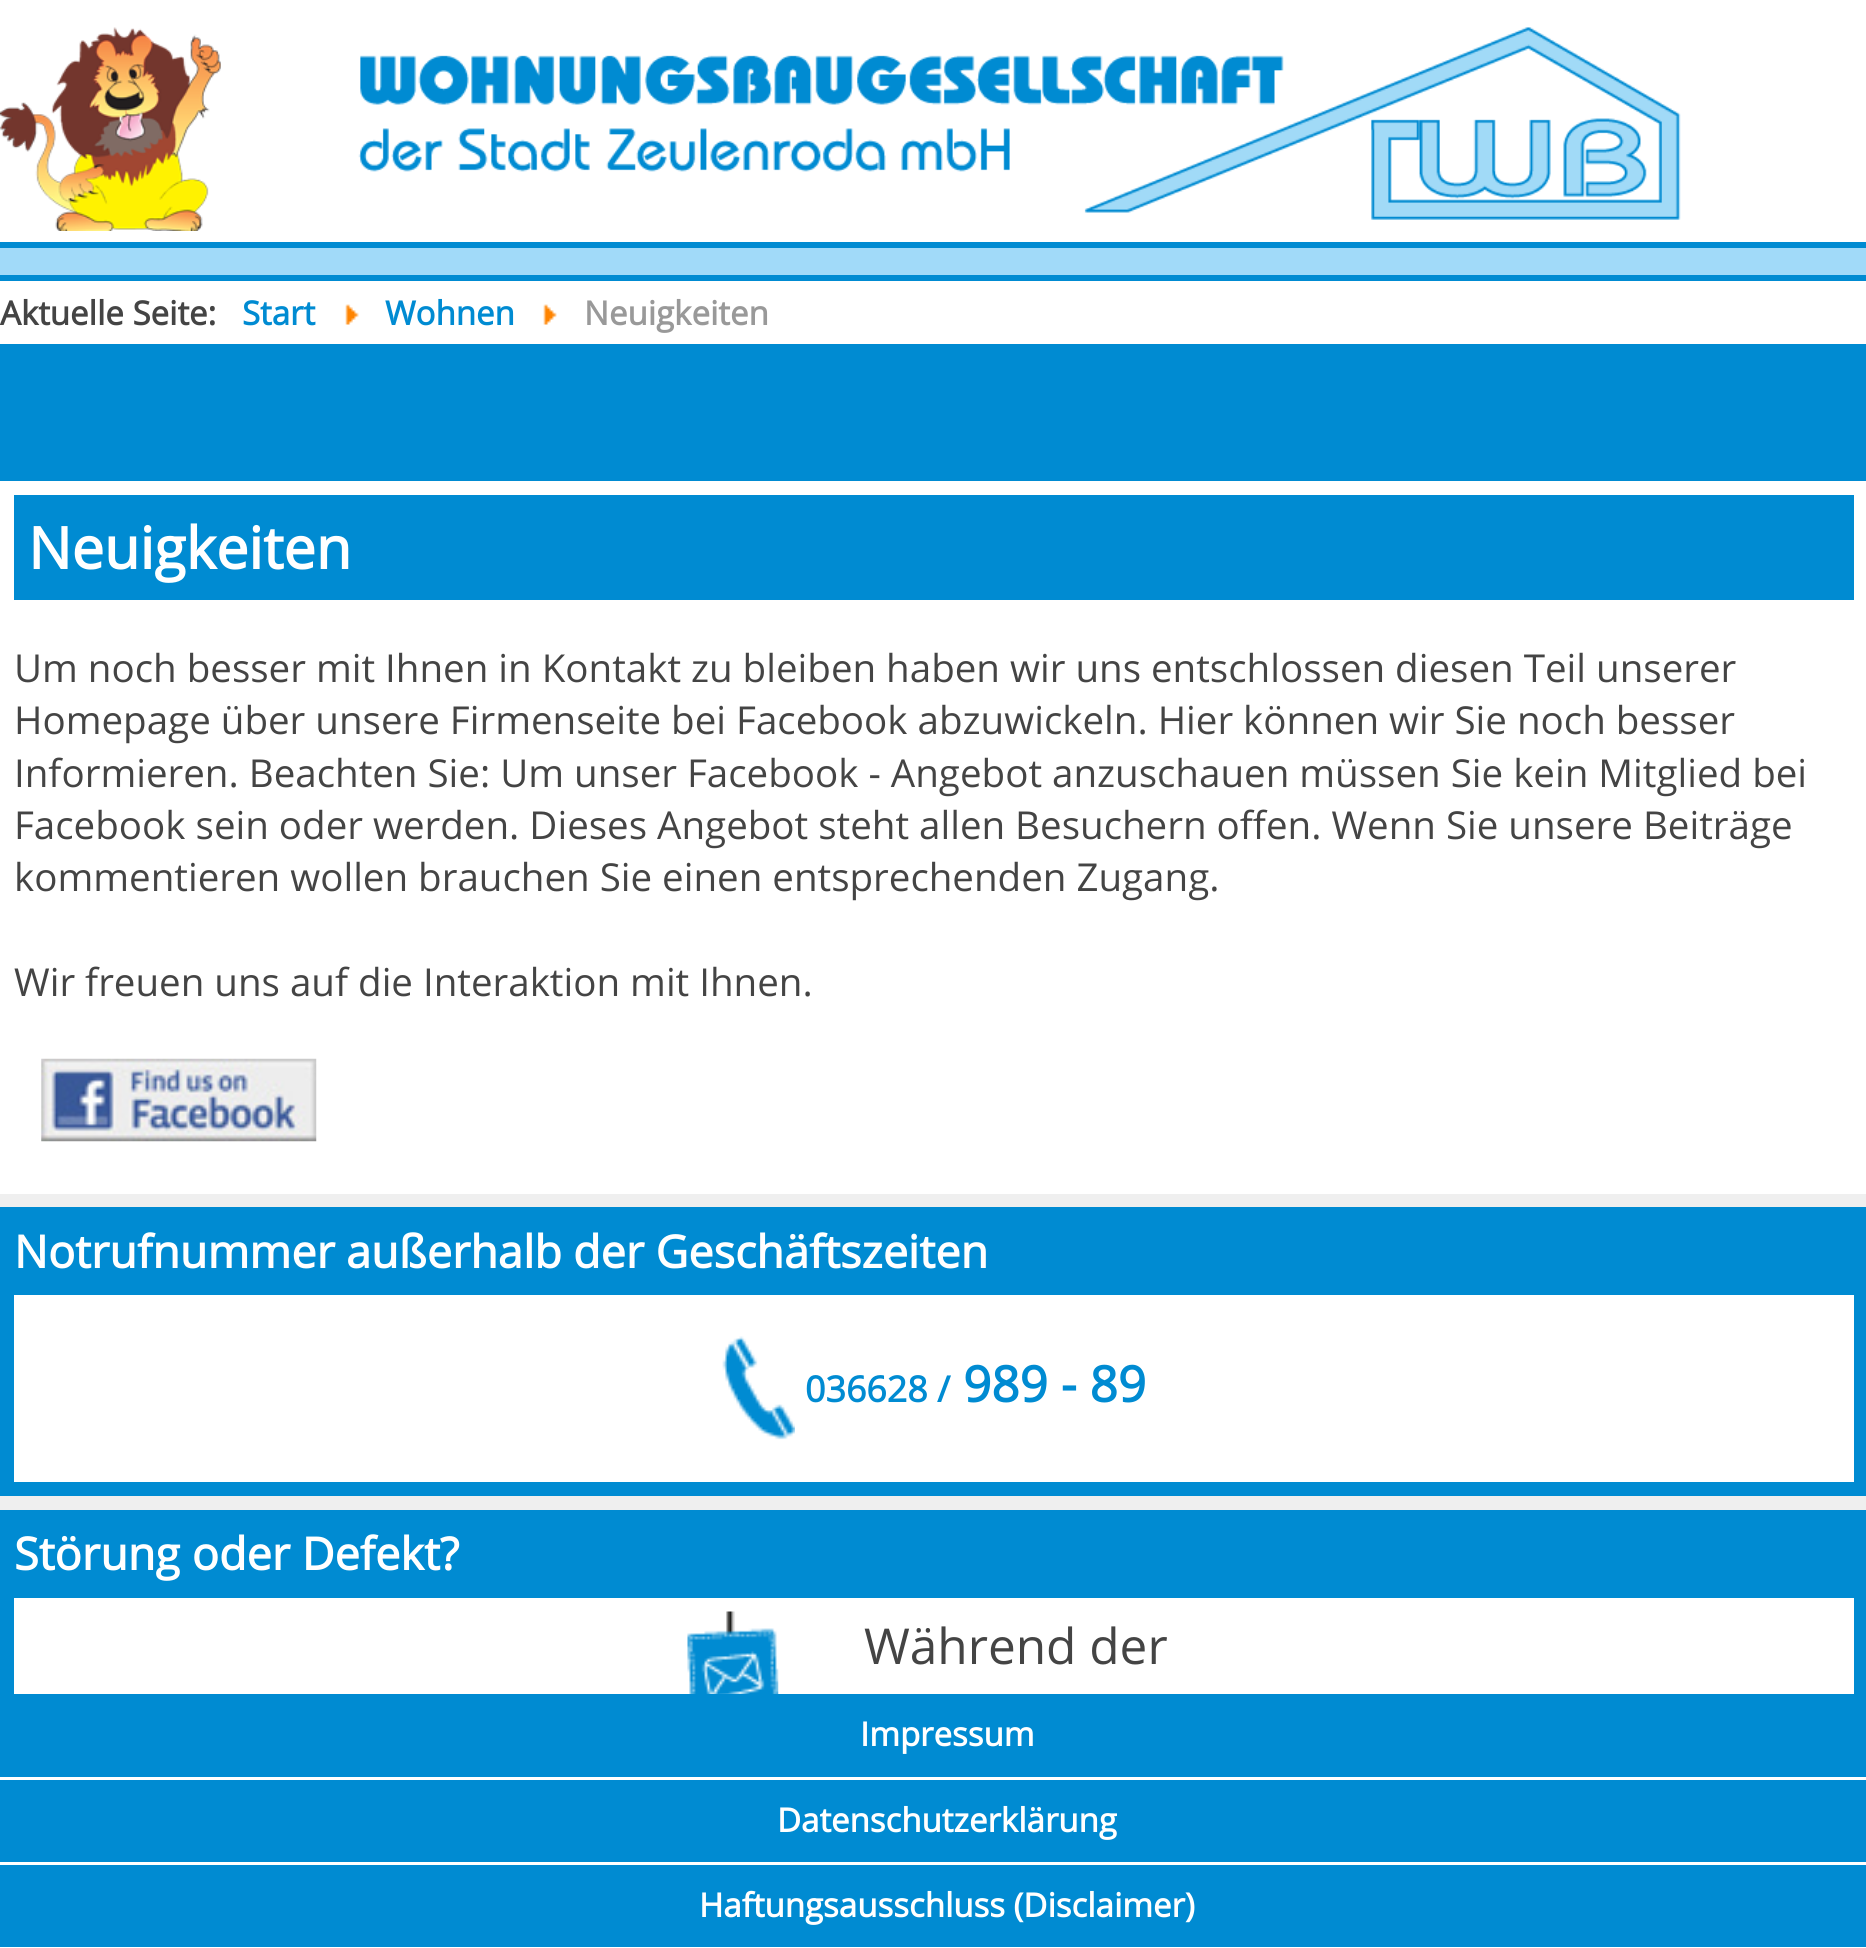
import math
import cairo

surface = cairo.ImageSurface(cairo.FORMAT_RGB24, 1866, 1948)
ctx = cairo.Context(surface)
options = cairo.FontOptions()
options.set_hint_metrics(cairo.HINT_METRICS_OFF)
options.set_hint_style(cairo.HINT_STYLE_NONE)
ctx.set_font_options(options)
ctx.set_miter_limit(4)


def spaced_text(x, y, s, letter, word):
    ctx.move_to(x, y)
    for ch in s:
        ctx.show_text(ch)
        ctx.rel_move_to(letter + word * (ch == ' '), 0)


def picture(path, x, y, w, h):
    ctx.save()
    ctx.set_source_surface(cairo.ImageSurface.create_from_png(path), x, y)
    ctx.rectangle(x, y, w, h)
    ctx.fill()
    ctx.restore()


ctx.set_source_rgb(0.937, 0.937, 0.937)
ctx.paint()
ctx.set_source_rgb(1, 1, 1)
ctx.rectangle(0, 0, 1866, 242)
ctx.fill()
picture("img1.png", 0, 27, 1681, 204)
ctx.set_source_rgb(0, 0.545, 0.824)
ctx.rectangle(0, 242, 1866, 6)
ctx.fill()
ctx.set_source_rgb(0.631, 0.855, 0.973)
ctx.rectangle(0, 248, 1866, 27)
ctx.fill()
ctx.set_source_rgb(0, 0.545, 0.824)
ctx.rectangle(0, 275, 1866, 6)
ctx.fill()
ctx.set_source_rgb(1, 1, 1)
ctx.rectangle(0, 281, 1866, 63)
ctx.fill()
ctx.select_font_face("Open Sans", cairo.FONT_SLANT_NORMAL, cairo.FONT_WEIGHT_BOLD)
ctx.set_font_size(33)
ctx.set_source_rgb(0.267, 0.267, 0.267)
ctx.move_to(0, 325)
ctx.show_text("Aktuelle Seite:")
ctx.set_source_rgb(0, 0.545, 0.824)
ctx.move_to(242, 325)
ctx.show_text("Start")
picture("img2.png", 345, 304, 14, 21)
ctx.move_to(385, 325)
ctx.show_text("Wohnen")
picture("img3.png", 543, 304, 14, 21)
ctx.set_source_rgb(0.6, 0.6, 0.6)
ctx.move_to(584, 325)
ctx.show_text("Neuigkeiten")
ctx.set_source_rgb(0, 0.545, 0.824)
ctx.rectangle(0, 344, 1866, 137)
ctx.fill()
ctx.set_source_rgb(1, 1, 1)
ctx.rectangle(0, 481, 1866, 713)
ctx.fill()
ctx.set_source_rgb(0, 0.545, 0.824)
ctx.rectangle(14, 495, 1840, 105)
ctx.fill()
ctx.set_font_size(57.75)
ctx.set_source_rgb(1, 1, 1)
ctx.move_to(28, 569)
ctx.show_text("Neuigkeiten")
ctx.select_font_face("Open Sans")
ctx.set_font_size(38.5)
ctx.set_source_rgb(0.267, 0.267, 0.267)
ctx.move_to(14, 682)
ctx.show_text("Um noch besser mit Ihnen in Kontakt zu bleiben haben wir uns entschlossen diesen Teil unserer")
ctx.move_to(14, 734)
ctx.show_text("Homepage über unsere Firmenseite bei Facebook abzuwickeln. Hier können wir Sie noch besser")
ctx.move_to(14, 787)
ctx.show_text("Informieren. Beachten Sie: Um unser Facebook - Angebot anzuschauen müssen Sie kein Mitglied bei")
ctx.move_to(14, 839)
ctx.show_text("Facebook sein oder werden. Dieses Angebot steht allen Besuchern offen. Wenn Sie unsere Beiträge")
ctx.move_to(14, 891)
ctx.show_text("kommentieren wollen brauchen Sie einen entsprechenden Zugang.")
ctx.move_to(14, 996)
ctx.show_text("Wir freuen uns auf die Interaktion mit Ihnen.")
picture("img4.png", 41, 1058, 276, 84)
ctx.set_source_rgb(0, 0.545, 0.824)
ctx.rectangle(0, 1207, 1866, 289)
ctx.fill()
ctx.select_font_face("Open Sans", cairo.FONT_SLANT_NORMAL, cairo.FONT_WEIGHT_BOLD)
ctx.set_font_size(45)
ctx.set_source_rgb(1, 1, 1)
spaced_text(14, 1268, "Notrufnummer außerhalb der Geschäftszeiten", 0, -0.5)
ctx.rectangle(14, 1295, 1840, 187)
ctx.fill()
picture("img5.png", 722, 1336, 73, 104)
ctx.set_font_size(35.75)
ctx.set_source_rgb(0, 0.545, 0.824)
ctx.move_to(805, 1402)
ctx.show_text("036628 /")
ctx.set_font_size(49.5)
ctx.move_to(963, 1402)
ctx.show_text("989 - 89")
ctx.rectangle(0, 1510, 1866, 437)
ctx.fill()
ctx.set_font_size(45)
ctx.set_source_rgb(1, 1, 1)
ctx.move_to(14, 1570)
ctx.show_text("Störung oder Defekt?")
ctx.rectangle(14, 1598, 1840, 96)
ctx.fill()
picture("img6.png", 687, 1611, 92, 83)
ctx.select_font_face("Open Sans")
ctx.set_font_size(49.5)
ctx.set_source_rgb(0.267, 0.267, 0.267)
ctx.move_to(864, 1664)
ctx.show_text("Während der")
ctx.set_source_rgb(1, 1, 1)
ctx.rectangle(0, 1777, 1866, 3)
ctx.fill()
ctx.select_font_face("Open Sans", cairo.FONT_SLANT_NORMAL, cairo.FONT_WEIGHT_BOLD)
ctx.set_font_size(33)
ctx.move_to(860, 1746)
ctx.show_text("Impressum")
ctx.rectangle(0, 1862, 1866, 3)
ctx.fill()
ctx.move_to(777, 1832)
ctx.show_text("Datenschutzerklärung")
ctx.rectangle(0, 1947, 1866, 1)
ctx.fill()
ctx.move_to(699, 1917)
ctx.show_text("Haftungsausschluss (Disclaimer)")
surface.write_to_png("page.png")
